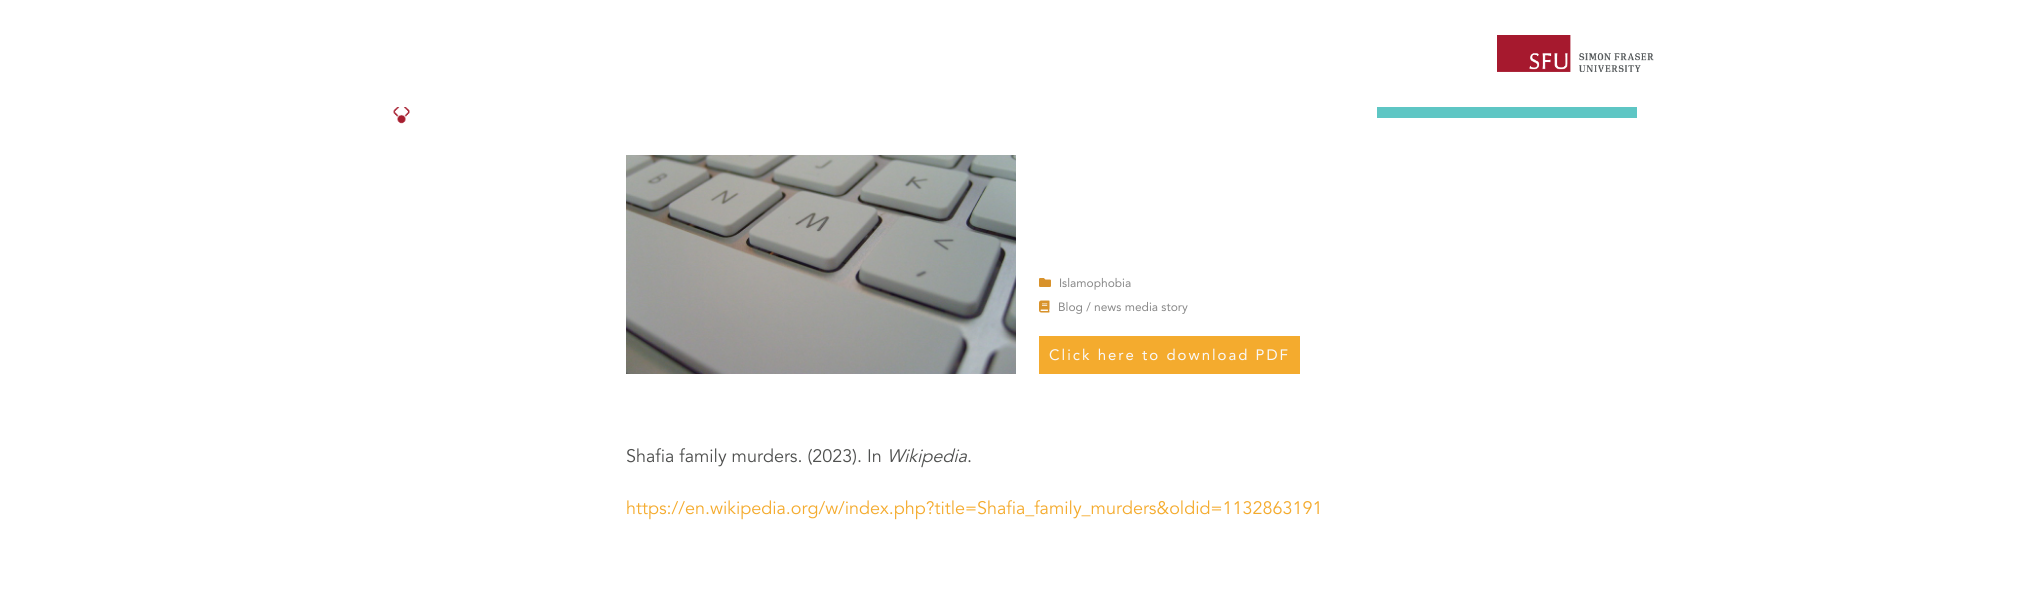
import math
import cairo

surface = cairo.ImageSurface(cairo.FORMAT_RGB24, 2032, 605)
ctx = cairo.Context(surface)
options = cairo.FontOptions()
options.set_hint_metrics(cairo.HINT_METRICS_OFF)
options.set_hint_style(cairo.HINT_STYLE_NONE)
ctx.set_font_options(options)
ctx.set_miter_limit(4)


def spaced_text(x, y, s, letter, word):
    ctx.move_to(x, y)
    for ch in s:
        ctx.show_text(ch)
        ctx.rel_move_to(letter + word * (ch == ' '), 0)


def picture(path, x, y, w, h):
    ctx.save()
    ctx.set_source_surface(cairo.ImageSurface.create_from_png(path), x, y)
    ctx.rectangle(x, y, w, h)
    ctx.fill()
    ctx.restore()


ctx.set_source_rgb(1, 1, 1)
ctx.paint()
picture("img1.png", 1497, 35, 157, 37)
picture("img2.png", 393, 107, 17, 17)
ctx.set_source_rgb(0.369, 0.776, 0.769)
ctx.rectangle(1377, 107, 260, 11)
ctx.fill()
picture("img3.png", 626, 155, 390, 219)
picture("img4.png", 1039, 278, 12, 9)
ctx.select_font_face("Avenir")
ctx.set_font_size(12)
ctx.set_source_rgb(0.533, 0.533, 0.533)
ctx.move_to(1059, 287)
ctx.show_text("Islamophobia")
picture("img5.png", 1039, 300, 11, 13)
ctx.move_to(1058, 311)
ctx.show_text("Blog / news media story")
ctx.set_source_rgb(0.957, 0.671, 0.18)
ctx.rectangle(1039, 336, 261, 38)
ctx.fill()
ctx.set_font_size(15)
ctx.set_source_rgb(0.973, 0.973, 0.973)
spaced_text(1049, 360, "Click here to download PDF", 2, 0)
ctx.select_font_face("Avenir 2")
ctx.set_font_size(18)
ctx.set_source_rgb(0.31, 0.314, 0.31)
ctx.move_to(626, 462)
ctx.show_text("Shafia family murders. (2023). In")
ctx.select_font_face("Avenir", cairo.FONT_SLANT_ITALIC)
ctx.move_to(887, 462)
ctx.show_text("Wikipedia")
ctx.select_font_face("Avenir 2")
ctx.move_to(967, 462)
ctx.show_text(".")
ctx.set_source_rgb(0.957, 0.671, 0.18)
ctx.move_to(626, 514)
ctx.show_text("https://en.wikipedia.org/w/index.php?title=Shafia_family_murders&oldid=1132863191")
surface.write_to_png("page.png")
